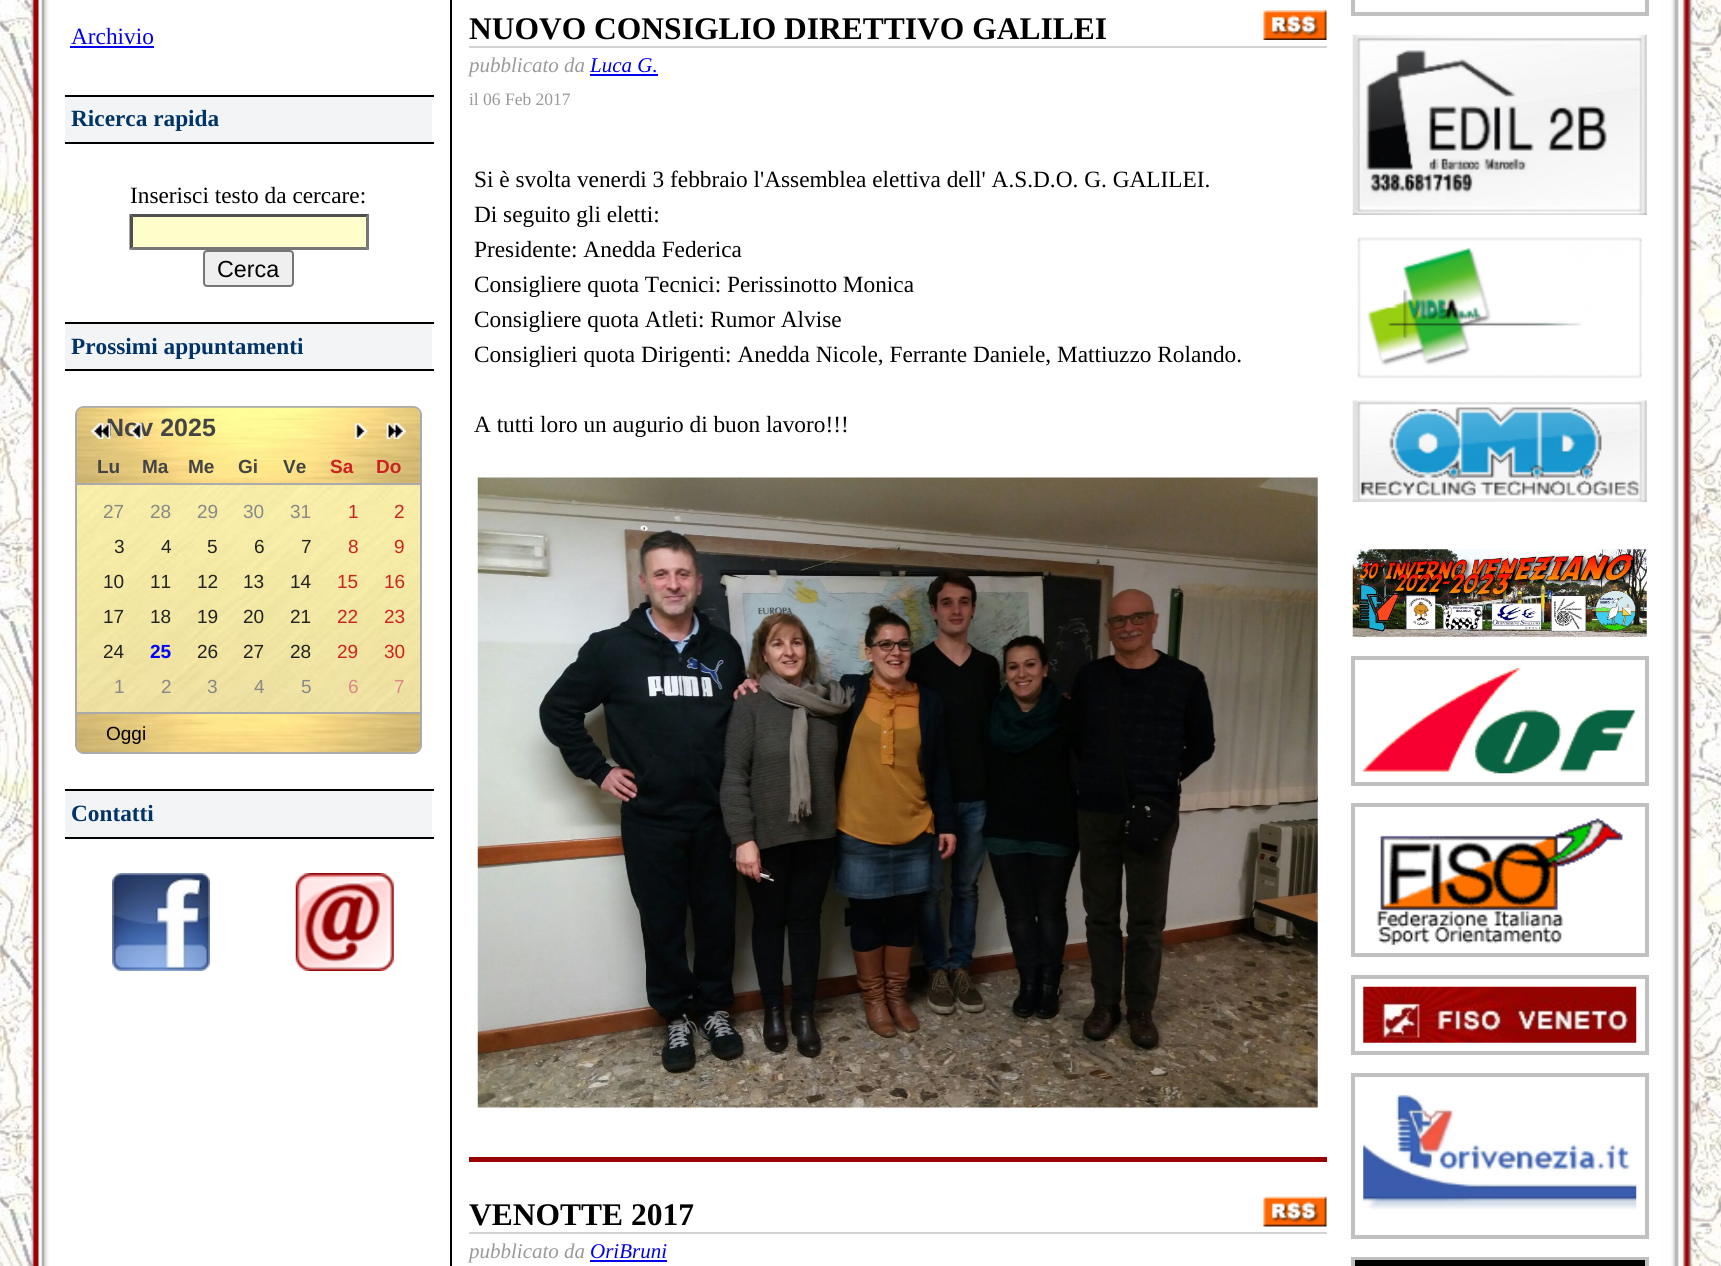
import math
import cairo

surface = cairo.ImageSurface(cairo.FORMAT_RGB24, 1721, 1266)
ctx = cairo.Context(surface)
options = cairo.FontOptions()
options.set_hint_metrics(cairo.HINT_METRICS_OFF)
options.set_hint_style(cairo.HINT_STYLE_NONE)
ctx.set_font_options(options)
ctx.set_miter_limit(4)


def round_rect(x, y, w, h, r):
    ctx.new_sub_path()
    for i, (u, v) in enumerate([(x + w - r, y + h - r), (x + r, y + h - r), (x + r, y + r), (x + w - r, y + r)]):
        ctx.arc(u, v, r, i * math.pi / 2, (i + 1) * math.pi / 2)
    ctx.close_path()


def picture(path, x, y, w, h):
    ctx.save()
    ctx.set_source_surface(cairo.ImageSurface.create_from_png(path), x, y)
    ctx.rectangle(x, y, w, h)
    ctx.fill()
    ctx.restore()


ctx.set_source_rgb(1, 1, 1)
ctx.paint()
picture("img1.png", 0, 0, 1721, 1266)
picture("img2.png", 31, 0, 1662, 1266)
ctx.set_source_rgb(0, 0, 0)
ctx.rectangle(450, 0, 2, 1266)
ctx.fill()
ctx.select_font_face("Liberation Serif")
ctx.set_font_size(23.3)
ctx.set_source_rgb(0, 0, 0.933)
ctx.move_to(71, 44)
ctx.show_text("Archivio")
ctx.rectangle(70, 46, 84, 2)
ctx.fill()
ctx.set_source_rgb(0.953, 0.957, 0.961)
ctx.rectangle(65, 97, 367, 45)
ctx.fill()
ctx.set_source_rgb(0, 0, 0)
ctx.rectangle(65, 95, 369, 2)
ctx.fill()
ctx.rectangle(65, 142, 369, 2)
ctx.fill()
ctx.select_font_face("Liberation Serif", cairo.FONT_SLANT_NORMAL, cairo.FONT_WEIGHT_BOLD)
ctx.set_source_rgb(0, 0.2, 0.4)
ctx.move_to(71, 126)
ctx.show_text("Ricerca rapida")
ctx.select_font_face("Liberation Serif")
ctx.set_source_rgb(0, 0, 0)
ctx.move_to(130, 203)
ctx.show_text("Inserisci testo da cercare:")
ctx.set_source_rgb(1, 1, 0.8)
ctx.rectangle(130, 214, 239, 36)
ctx.fill()
ctx.set_source_rgb(0.31, 0.31, 0.31)
ctx.new_path()
ctx.move_to(130, 214)
ctx.line_to(369, 214)
ctx.line_to(366, 217)
ctx.line_to(133, 217)
ctx.close_path()
ctx.fill()
ctx.set_source_rgb(0.463, 0.463, 0.463)
ctx.new_path()
ctx.move_to(369, 213.5)
ctx.line_to(369, 250)
ctx.line_to(366, 247)
ctx.line_to(366, 217)
ctx.close_path()
ctx.fill()
ctx.new_path()
ctx.move_to(369, 250)
ctx.line_to(130, 250)
ctx.line_to(133, 247)
ctx.line_to(366, 247)
ctx.close_path()
ctx.fill()
ctx.set_source_rgb(0.31, 0.31, 0.31)
ctx.new_path()
ctx.move_to(129.5, 250)
ctx.line_to(129.5, 213.5)
ctx.line_to(133, 217)
ctx.line_to(133, 247)
ctx.close_path()
ctx.fill()
ctx.set_source_rgb(0.937, 0.937, 0.937)
round_rect(204, 251, 89, 35, 3)
ctx.fill_preserve()
ctx.set_source_rgb(0.463, 0.463, 0.463)
ctx.stroke()
ctx.select_font_face("Liberation Sans")
ctx.set_source_rgb(0, 0, 0)
ctx.move_to(217, 277)
ctx.show_text("Cerca")
ctx.set_source_rgb(0.953, 0.957, 0.961)
ctx.rectangle(65, 324, 367, 45)
ctx.fill()
ctx.set_source_rgb(0, 0, 0)
ctx.rectangle(65, 322, 369, 2)
ctx.fill()
ctx.rectangle(65, 369, 369, 2)
ctx.fill()
ctx.select_font_face("Liberation Serif", cairo.FONT_SLANT_NORMAL, cairo.FONT_WEIGHT_BOLD)
ctx.set_source_rgb(0, 0.2, 0.4)
ctx.move_to(71, 354)
ctx.show_text("Prossimi appuntamenti")
picture("img3.png", 75, 485, 347, 269)
round_rect(76, 407, 345, 346, 8)
ctx.set_source_rgb(0.667, 0.667, 0.667)
ctx.stroke()
picture("img4.png", 77, 407, 343, 76)
ctx.rectangle(77, 483, 343, 2)
ctx.fill()
ctx.select_font_face("Liberation Sans", cairo.FONT_SLANT_NORMAL, cairo.FONT_WEIGHT_BOLD)
ctx.set_font_size(25)
ctx.set_source_rgb(0.267, 0.267, 0.267)
ctx.move_to(106, 436)
ctx.show_text("Nov 2025")
picture("img5.png", 91, 423, 20, 16)
picture("img6.png", 129, 423, 14, 16)
picture("img7.png", 354, 423, 14, 16)
picture("img8.png", 386, 423, 20, 16)
ctx.set_font_size(19)
ctx.move_to(97, 473)
ctx.show_text("Lu")
ctx.move_to(142, 473)
ctx.show_text("Ma")
ctx.move_to(188, 473)
ctx.show_text("Me")
ctx.move_to(238, 473)
ctx.show_text("Gi")
ctx.move_to(283, 473)
ctx.show_text("Ve")
ctx.set_source_rgb(0.8, 0.133, 0.133)
ctx.move_to(330, 473)
ctx.show_text("Sa")
ctx.move_to(376, 473)
ctx.show_text("Do")
ctx.select_font_face("Liberation Sans")
ctx.set_source_rgb(0.533, 0.533, 0.533)
ctx.move_to(103, 518)
ctx.show_text("27")
ctx.move_to(150, 518)
ctx.show_text("28")
ctx.move_to(197, 518)
ctx.show_text("29")
ctx.move_to(243, 518)
ctx.show_text("30")
ctx.move_to(290, 518)
ctx.show_text("31")
ctx.set_source_rgb(0.8, 0.133, 0.133)
ctx.move_to(348, 518)
ctx.show_text("1")
ctx.move_to(394, 518)
ctx.show_text("2")
ctx.set_source_rgb(0.133, 0.133, 0.133)
ctx.move_to(114, 553)
ctx.show_text("3")
ctx.move_to(161, 553)
ctx.show_text("4")
ctx.move_to(207, 553)
ctx.show_text("5")
ctx.move_to(254, 553)
ctx.show_text("6")
ctx.move_to(301, 553)
ctx.show_text("7")
ctx.set_source_rgb(0.8, 0.133, 0.133)
ctx.move_to(348, 553)
ctx.show_text("8")
ctx.move_to(394, 553)
ctx.show_text("9")
ctx.set_source_rgb(0.133, 0.133, 0.133)
ctx.move_to(103, 588)
ctx.show_text("10")
ctx.move_to(150, 588)
ctx.show_text("11")
ctx.move_to(197, 588)
ctx.show_text("12")
ctx.move_to(243, 588)
ctx.show_text("13")
ctx.move_to(290, 588)
ctx.show_text("14")
ctx.set_source_rgb(0.8, 0.133, 0.133)
ctx.move_to(337, 588)
ctx.show_text("15")
ctx.move_to(384, 588)
ctx.show_text("16")
ctx.set_source_rgb(0.133, 0.133, 0.133)
ctx.move_to(103, 623)
ctx.show_text("17")
ctx.move_to(150, 623)
ctx.show_text("18")
ctx.move_to(197, 623)
ctx.show_text("19")
ctx.move_to(243, 623)
ctx.show_text("20")
ctx.move_to(290, 623)
ctx.show_text("21")
ctx.set_source_rgb(0.8, 0.133, 0.133)
ctx.move_to(337, 623)
ctx.show_text("22")
ctx.move_to(384, 623)
ctx.show_text("23")
ctx.set_source_rgb(0.133, 0.133, 0.133)
ctx.move_to(103, 658)
ctx.show_text("24")
ctx.select_font_face("Liberation Sans", cairo.FONT_SLANT_NORMAL, cairo.FONT_WEIGHT_BOLD)
ctx.set_source_rgb(0, 0, 1)
ctx.move_to(150, 658)
ctx.show_text("25")
ctx.select_font_face("Liberation Sans")
ctx.set_source_rgb(0.133, 0.133, 0.133)
ctx.move_to(197, 658)
ctx.show_text("26")
ctx.move_to(243, 658)
ctx.show_text("27")
ctx.move_to(290, 658)
ctx.show_text("28")
ctx.set_source_rgb(0.8, 0.133, 0.133)
ctx.move_to(337, 658)
ctx.show_text("29")
ctx.move_to(384, 658)
ctx.show_text("30")
ctx.set_source_rgb(0.533, 0.533, 0.533)
ctx.move_to(114, 693)
ctx.show_text("1")
ctx.move_to(161, 693)
ctx.show_text("2")
ctx.move_to(207, 693)
ctx.show_text("3")
ctx.move_to(254, 693)
ctx.show_text("4")
ctx.move_to(301, 693)
ctx.show_text("5")
ctx.set_source_rgb(0.867, 0.533, 0.533)
ctx.move_to(348, 693)
ctx.show_text("6")
ctx.move_to(394, 693)
ctx.show_text("7")
picture("img9.png", 77, 714, 343, 39)
ctx.set_source_rgb(0.667, 0.667, 0.667)
ctx.rectangle(77, 712, 343, 2)
ctx.fill()
ctx.set_source_rgb(0, 0, 0)
ctx.move_to(106, 740)
ctx.show_text("Oggi")
ctx.set_source_rgb(0.953, 0.957, 0.961)
ctx.rectangle(65, 791, 367, 46)
ctx.fill()
ctx.set_source_rgb(0, 0, 0)
ctx.rectangle(65, 789, 369, 2)
ctx.fill()
ctx.rectangle(65, 837, 369, 2)
ctx.fill()
ctx.select_font_face("Liberation Serif", cairo.FONT_SLANT_NORMAL, cairo.FONT_WEIGHT_BOLD)
ctx.set_font_size(23.3)
ctx.set_source_rgb(0, 0.2, 0.4)
ctx.move_to(71, 821)
ctx.show_text("Contatti")
picture("img10.png", 112, 873, 98, 98)
picture("img11.png", 295, 873, 99, 98)
ctx.set_font_size(31.5)
ctx.set_source_rgb(0, 0, 0)
ctx.move_to(469, 39)
ctx.show_text("NUOVO CONSIGLIO DIRETTIVO GALILEI")
picture("img12.png", 1263, 10, 64, 30)
ctx.set_source_rgb(0.827, 0.827, 0.827)
ctx.rectangle(469, 46, 858, 2)
ctx.fill()
ctx.set_source_rgb(0.6, 0, 0)
ctx.rectangle(469, 1157, 858, 5)
ctx.fill()
ctx.select_font_face("Liberation Serif", cairo.FONT_SLANT_ITALIC)
ctx.set_font_size(21)
ctx.set_source_rgb(0.6, 0.6, 0.6)
ctx.move_to(469, 72)
ctx.show_text("pubblicato da")
ctx.set_source_rgb(0, 0, 0.933)
ctx.move_to(590, 72)
ctx.show_text("Luca G.")
ctx.rectangle(590, 74, 68, 2)
ctx.fill()
ctx.select_font_face("Liberation Serif")
ctx.set_font_size(17.5)
ctx.set_source_rgb(0.6, 0.6, 0.6)
ctx.move_to(469, 105)
ctx.show_text("il 06 Feb 2017")
ctx.set_font_size(23.3)
ctx.set_source_rgb(0, 0, 0)
ctx.move_to(474, 187)
ctx.show_text("Si è svolta venerdi 3 febbraio l'Assemblea elettiva dell' A.S.D.O. G. GALILEI.")
ctx.move_to(474, 222)
ctx.show_text("Di seguito gli eletti:")
ctx.move_to(474, 257)
ctx.show_text("Presidente: Anedda Federica")
ctx.move_to(474, 292)
ctx.show_text("Consigliere quota Tecnici: Perissinotto Monica")
ctx.move_to(474, 327)
ctx.show_text("Consigliere quota Atleti: Rumor Alvise")
ctx.move_to(474, 362)
ctx.show_text("Consiglieri quota Dirigenti: Anedda Nicole, Ferrante Daniele, Mattiuzzo Rolando.")
ctx.move_to(474, 432)
ctx.show_text("A tutti loro un augurio di buon lavoro!!!")
picture("img13.png", 477, 477, 841, 631)
ctx.select_font_face("Liberation Serif", cairo.FONT_SLANT_NORMAL, cairo.FONT_WEIGHT_BOLD)
ctx.set_font_size(31.5)
ctx.move_to(469, 1225)
ctx.show_text("VENOTTE 2017")
picture("img14.png", 1263, 1196, 64, 31)
ctx.set_source_rgb(0.827, 0.827, 0.827)
ctx.rectangle(469, 1232, 858, 2)
ctx.fill()
ctx.select_font_face("Liberation Serif", cairo.FONT_SLANT_ITALIC)
ctx.set_font_size(21)
ctx.set_source_rgb(0.6, 0.6, 0.6)
ctx.move_to(469, 1258)
ctx.show_text("pubblicato da")
ctx.set_source_rgb(0, 0, 0.933)
ctx.move_to(590, 1258)
ctx.show_text("OriBruni")
ctx.rectangle(590, 1260, 77, 2)
ctx.fill()
ctx.rectangle(1353, -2, 294, 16)
ctx.set_source_rgb(0.753, 0.753, 0.753)
ctx.set_line_width(4)
ctx.stroke()
picture("img15.png", 1352, 34, 295, 181)
picture("img16.png", 1357, 237, 285, 142)
picture("img17.png", 1352, 400, 295, 102)
picture("img18.png", 1352, 549, 295, 88)
ctx.rectangle(1353, 658, 294, 126)
ctx.stroke()
picture("img19.png", 1363, 668, 273, 106)
ctx.rectangle(1353, 805, 294, 150)
ctx.stroke()
picture("img20.png", 1376, 818, 247, 127)
ctx.rectangle(1353, 977, 294, 76)
ctx.stroke()
picture("img21.png", 1363, 986, 274, 57)
ctx.rectangle(1353, 1075, 294, 162)
ctx.stroke()
picture("img22.png", 1363, 1094, 274, 116)
ctx.rectangle(1353, 1259, 294, 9)
ctx.stroke()
ctx.set_source_rgb(0, 0, 0)
ctx.rectangle(1355, 1260, 290, 6)
ctx.fill()
surface.write_to_png("page.png")
